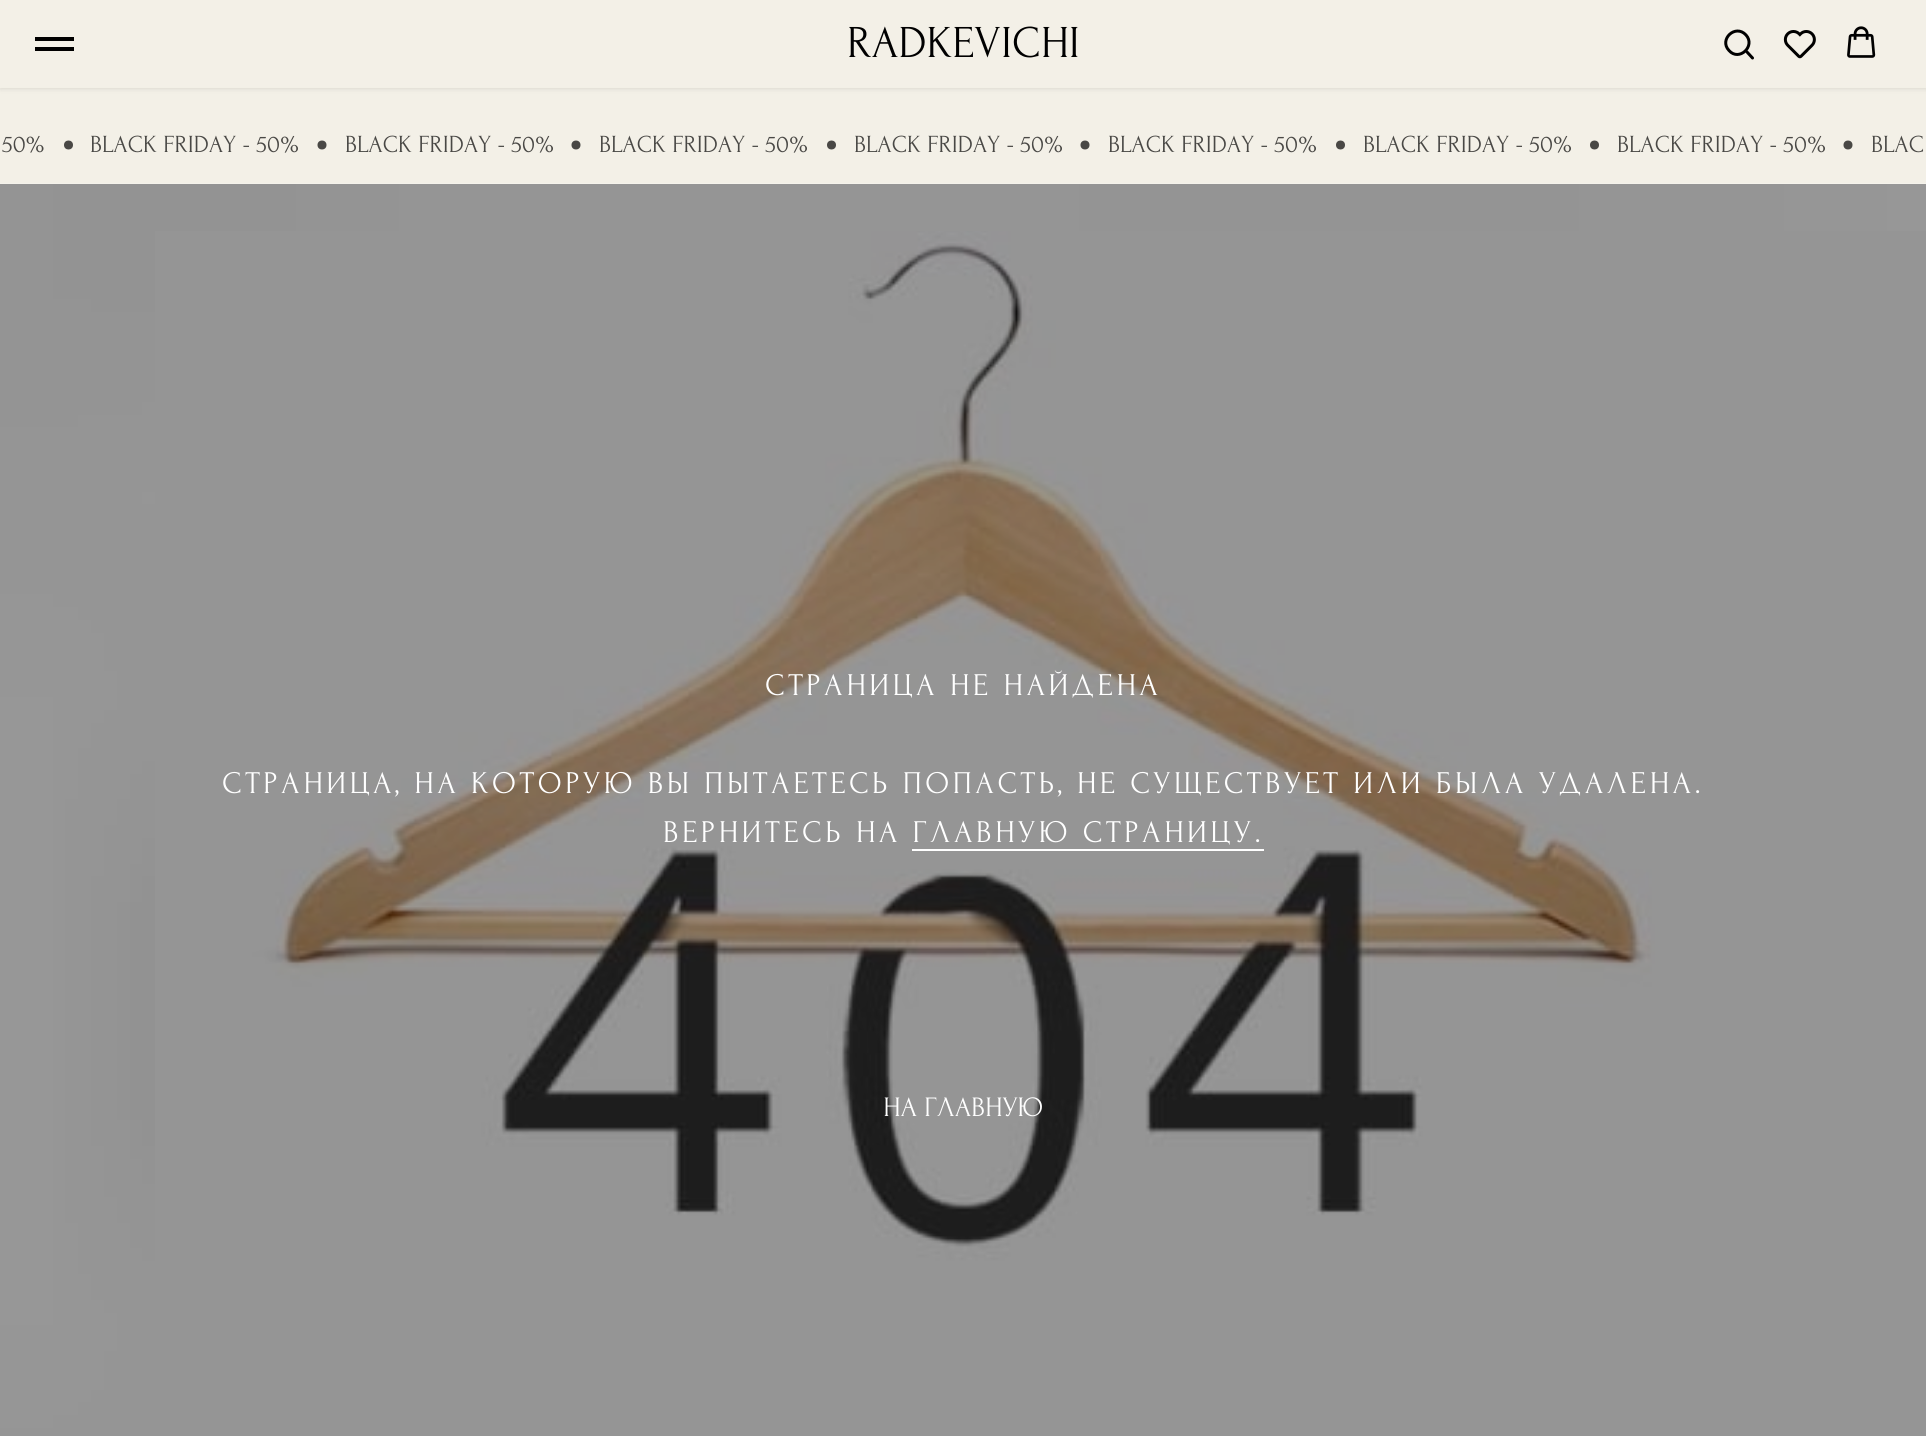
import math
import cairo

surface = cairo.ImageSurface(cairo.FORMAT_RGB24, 1926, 1436)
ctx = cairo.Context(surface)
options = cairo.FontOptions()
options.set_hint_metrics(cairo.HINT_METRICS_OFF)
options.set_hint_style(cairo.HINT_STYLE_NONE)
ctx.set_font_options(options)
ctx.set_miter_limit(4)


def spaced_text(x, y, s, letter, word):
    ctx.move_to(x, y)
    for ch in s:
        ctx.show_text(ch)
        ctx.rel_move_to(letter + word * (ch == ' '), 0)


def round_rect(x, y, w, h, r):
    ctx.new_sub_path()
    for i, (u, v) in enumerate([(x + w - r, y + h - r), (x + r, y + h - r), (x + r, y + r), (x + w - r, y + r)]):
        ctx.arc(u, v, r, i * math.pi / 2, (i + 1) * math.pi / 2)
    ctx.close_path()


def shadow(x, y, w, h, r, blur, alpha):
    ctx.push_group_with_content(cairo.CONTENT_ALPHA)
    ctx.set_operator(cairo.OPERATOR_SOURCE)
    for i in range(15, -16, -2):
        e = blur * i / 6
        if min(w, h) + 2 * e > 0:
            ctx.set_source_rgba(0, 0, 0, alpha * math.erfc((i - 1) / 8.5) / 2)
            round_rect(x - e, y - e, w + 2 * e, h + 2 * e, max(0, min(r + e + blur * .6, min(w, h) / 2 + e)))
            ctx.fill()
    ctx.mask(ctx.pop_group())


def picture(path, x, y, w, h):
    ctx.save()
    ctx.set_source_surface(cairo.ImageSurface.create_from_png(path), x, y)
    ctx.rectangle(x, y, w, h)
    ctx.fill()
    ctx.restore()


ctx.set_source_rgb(0.953, 0.941, 0.906)
ctx.paint()
ctx.save()
ctx.set_fill_rule(cairo.FILL_RULE_EVEN_ODD)
ctx.new_path()
ctx.move_to(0, 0)
ctx.line_to(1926, 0)
ctx.line_to(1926, 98)
ctx.line_to(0, 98)
ctx.close_path()
ctx.move_to(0, 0)
ctx.line_to(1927, 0)
ctx.line_to(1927, 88)
ctx.line_to(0, 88)
ctx.close_path()
ctx.clip()
ctx.set_source_rgb(0, 0, 0)
shadow(0, 2, 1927, 87, 0, 2.5, 0.1)
ctx.restore()
ctx.set_source_rgba(0.953, 0.941, 0.906, 0.5)
ctx.rectangle(1, 87, 1925, 1)
ctx.fill()
ctx.set_source_rgb(0, 0, 0)
ctx.rectangle(35, 37, 39, 4)
ctx.fill()
ctx.rectangle(35, 47, 39, 4)
ctx.fill()
ctx.select_font_face("Forum")
ctx.set_font_size(45.5)
ctx.move_to(847, 57)
ctx.show_text("RADKEVICHI")
ctx.new_path()
ctx.move_to(1746, 35)
ctx.curve_to(1756, 46, 1739, 62, 1729, 50.5)
ctx.curve_to(1718.5, 39.5, 1735.5, 23.5, 1746, 35)
ctx.close_path()
ctx.set_line_width(3)
ctx.stroke()
ctx.new_path()
ctx.move_to(1747, 52)
ctx.line_to(1752.5, 58)
ctx.set_line_cap(cairo.LINE_CAP_ROUND)
ctx.stroke()
picture("img1.png", 1783, 30, 33, 29)
picture("img2.png", 1847, 26, 29, 32)
ctx.set_font_size(24.5)
ctx.set_source_rgb(0.286, 0.282, 0.271)
ctx.move_to(2, 152)
ctx.show_text("50%")
ctx.new_path()
ctx.arc(68.5, 145, 4.5, 0, 2 * math.pi)
ctx.fill()
ctx.move_to(90, 152)
ctx.show_text("BLACK FRIDAY - 50%")
ctx.new_path()
ctx.arc(322, 145, 4.5, 0, 2 * math.pi)
ctx.fill()
ctx.move_to(345, 152)
ctx.show_text("BLACK FRIDAY - 50%")
ctx.new_path()
ctx.arc(576, 145, 4.5, 0, 2 * math.pi)
ctx.fill()
ctx.move_to(599, 152)
ctx.show_text("BLACK FRIDAY - 50%")
ctx.new_path()
ctx.arc(831.5, 145, 4.5, 0, 2 * math.pi)
ctx.fill()
ctx.move_to(854, 152)
ctx.show_text("BLACK FRIDAY - 50%")
ctx.new_path()
ctx.arc(1085, 145, 4.5, 0, 2 * math.pi)
ctx.fill()
ctx.move_to(1108, 152)
ctx.show_text("BLACK FRIDAY - 50%")
ctx.new_path()
ctx.arc(1340.5, 145, 4.5, 0, 2 * math.pi)
ctx.fill()
ctx.move_to(1363, 152)
ctx.show_text("BLACK FRIDAY - 50%")
ctx.new_path()
ctx.arc(1594.5, 145, 4.5, 0, 2 * math.pi)
ctx.fill()
ctx.move_to(1617, 152)
ctx.show_text("BLACK FRIDAY - 50%")
ctx.new_path()
ctx.arc(1848, 145, 4.5, 0, 2 * math.pi)
ctx.fill()
ctx.move_to(1871, 152)
ctx.show_text("BLAC")
picture("img3.png", 0, 183, 1926, 1253)
picture("img4.png", 155, 231, 1771, 1205)
ctx.set_font_size(31.5)
ctx.set_source_rgb(1, 1, 1)
spaced_text(765, 695, "СТРАНИЦА НЕ НАЙДЕНА", 3.5, 0)
spaced_text(222, 793, "CТРАНИЦА, НА КОТОРУЮ ВЫ ПЫТАЕТЕСЬ ПОПАСТЬ, НЕ СУЩЕСТВУЕТ ИЛИ БЫЛА УДАЛЕНА.", 3.5, 0)
spaced_text(663, 842, "ВЕРНИТЕСЬ НА ГЛАВНУЮ СТРАНИЦУ.", 3.5, 0)
ctx.rectangle(912, 849, 352, 2)
ctx.fill()
ctx.set_font_size(28)
ctx.move_to(883, 1116)
ctx.show_text("НА ГЛАВНУЮ")
surface.write_to_png("page.png")
